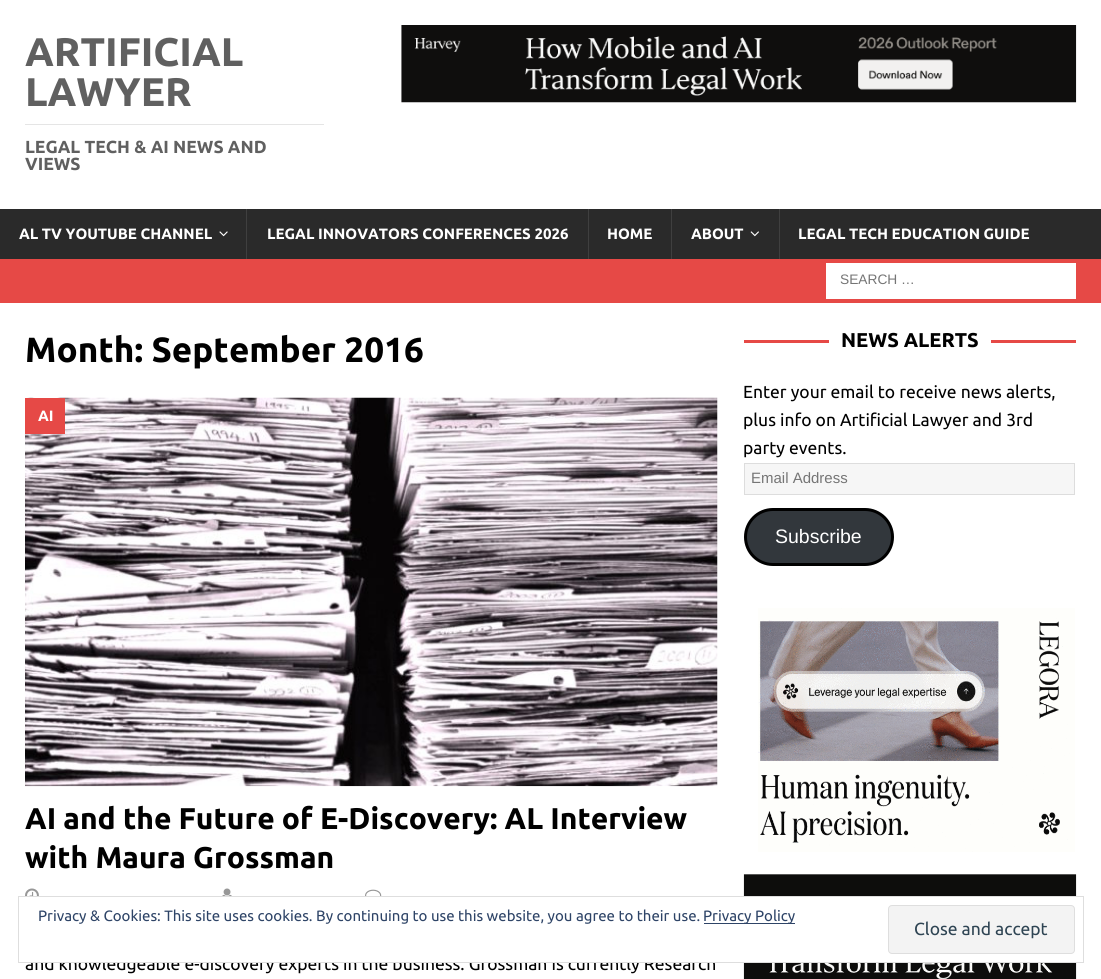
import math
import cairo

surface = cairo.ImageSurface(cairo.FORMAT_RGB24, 1101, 979)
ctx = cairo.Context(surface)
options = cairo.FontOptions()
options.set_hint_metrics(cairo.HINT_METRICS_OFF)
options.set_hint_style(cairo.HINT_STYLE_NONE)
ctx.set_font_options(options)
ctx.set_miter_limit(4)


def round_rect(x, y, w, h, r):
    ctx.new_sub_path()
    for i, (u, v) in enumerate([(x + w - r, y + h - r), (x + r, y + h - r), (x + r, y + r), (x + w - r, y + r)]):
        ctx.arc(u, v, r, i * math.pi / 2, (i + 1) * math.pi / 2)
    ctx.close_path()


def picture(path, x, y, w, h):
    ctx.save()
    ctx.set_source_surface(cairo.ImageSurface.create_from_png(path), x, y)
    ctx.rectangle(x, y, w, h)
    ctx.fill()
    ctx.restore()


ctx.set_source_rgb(1, 1, 1)
ctx.paint()
ctx.select_font_face("Ubuntu", cairo.FONT_SLANT_NORMAL, cairo.FONT_WEIGHT_BOLD)
ctx.set_font_size(40)
ctx.set_source_rgb(0.376, 0.376, 0.376)
ctx.move_to(25, 66)
ctx.show_text("ARTIFICIAL")
ctx.move_to(25, 106)
ctx.show_text("LAWYER")
ctx.set_source_rgb(0.898, 0.898, 0.898)
ctx.rectangle(25, 124, 299, 1)
ctx.fill()
ctx.set_font_size(17.5)
ctx.set_source_rgb(0.376, 0.376, 0.376)
ctx.move_to(25, 153)
ctx.show_text("LEGAL TECH & AI NEWS AND")
ctx.move_to(25, 170)
ctx.show_text("VIEWS")
picture("img1.png", 401, 25, 676, 78)
ctx.set_source_rgb(0.165, 0.165, 0.165)
ctx.rectangle(0, 209, 1101, 50)
ctx.fill()
ctx.set_font_size(15)
ctx.set_source_rgb(1, 1, 1)
ctx.move_to(19, 239)
ctx.show_text("AL TV YOUTUBE CHANNEL")
picture("img2.png", 219, 231, 9, 6)
ctx.set_source_rgb(0.247, 0.247, 0.247)
ctx.rectangle(246, 209, 1, 50)
ctx.fill()
ctx.set_source_rgb(1, 1, 1)
ctx.move_to(267, 239)
ctx.show_text("LEGAL INNOVATORS CONFERENCES 2026")
ctx.set_source_rgb(0.247, 0.247, 0.247)
ctx.rectangle(588, 209, 1, 50)
ctx.fill()
ctx.set_source_rgb(1, 1, 1)
ctx.move_to(607, 239)
ctx.show_text("HOME")
ctx.set_source_rgb(0.247, 0.247, 0.247)
ctx.rectangle(671, 209, 1, 50)
ctx.fill()
ctx.set_source_rgb(1, 1, 1)
ctx.move_to(691, 239)
ctx.show_text("ABOUT")
picture("img3.png", 750, 231, 9, 6)
ctx.set_source_rgb(0.247, 0.247, 0.247)
ctx.rectangle(779, 209, 1, 50)
ctx.fill()
ctx.set_source_rgb(1, 1, 1)
ctx.move_to(798, 239)
ctx.show_text("LEGAL TECH EDUCATION GUIDE")
ctx.set_source_rgb(0.902, 0.286, 0.275)
ctx.rectangle(0, 259, 1101, 44)
ctx.fill()
ctx.set_source_rgb(1, 1, 1)
ctx.rectangle(826, 263, 250, 36)
ctx.fill()
ctx.select_font_face("Liberation Sans")
ctx.set_font_size(13.75)
ctx.set_source_rgb(0.459, 0.459, 0.459)
ctx.move_to(840, 284)
ctx.show_text("SEARCH …")
ctx.select_font_face("Ubuntu", cairo.FONT_SLANT_NORMAL, cairo.FONT_WEIGHT_BOLD)
ctx.set_font_size(35)
ctx.set_source_rgb(0, 0, 0)
ctx.move_to(25, 362)
ctx.show_text("Month: September 2016")
picture("img4.png", 25, 397, 693, 390)
ctx.set_source_rgb(0.902, 0.286, 0.275)
ctx.rectangle(25, 398, 40, 36)
ctx.fill()
ctx.set_font_size(15)
ctx.set_source_rgb(1, 1, 1)
ctx.move_to(38, 421)
ctx.show_text("AI")
ctx.set_font_size(30)
ctx.set_source_rgb(0, 0, 0)
ctx.move_to(25, 829)
ctx.show_text("AI and the Future of E-Discovery: AL Interview")
ctx.move_to(25, 868)
ctx.show_text("with Maura Grossman")
picture("img5.png", 25, 888, 14, 8)
picture("img6.png", 222, 888, 10, 8)
picture("img7.png", 365, 889, 17, 7)
ctx.select_font_face("Ubuntu")
ctx.set_font_size(17.5)
ctx.move_to(25, 970)
ctx.show_text("and knowledgeable e-discovery experts in the business. Grossman is currently Research")
ctx.set_source_rgb(0.902, 0.286, 0.275)
ctx.rectangle(744, 340, 332, 3)
ctx.fill()
ctx.set_source_rgb(1, 1, 1)
ctx.rectangle(829, 340, 162, 3)
ctx.fill()
ctx.select_font_face("Ubuntu", cairo.FONT_SLANT_NORMAL, cairo.FONT_WEIGHT_BOLD)
ctx.set_font_size(20)
ctx.set_source_rgb(0, 0, 0)
ctx.move_to(841, 347)
ctx.show_text("NEWS ALERTS")
ctx.select_font_face("Ubuntu")
ctx.set_font_size(17.5)
ctx.move_to(743, 398)
ctx.show_text("Enter your email to receive news alerts,")
ctx.move_to(743, 426)
ctx.show_text("plus info on Artificial Lawyer and 3rd")
ctx.move_to(743, 454)
ctx.show_text("party events.")
ctx.set_source_rgb(0.961, 0.961, 0.961)
ctx.rectangle(744.5, 463.5, 330, 31)
ctx.fill_preserve()
ctx.set_source_rgb(0.867, 0.867, 0.867)
ctx.set_line_width(1)
ctx.stroke()
ctx.select_font_face("Liberation Sans")
ctx.set_font_size(15)
ctx.set_source_rgb(0.459, 0.459, 0.459)
ctx.move_to(751, 483)
ctx.show_text("Email Address")
ctx.set_source_rgb(0.196, 0.216, 0.235)
round_rect(745.5, 509.5, 147, 55, 27.5)
ctx.fill_preserve()
ctx.set_source_rgb(0, 0, 0)
ctx.set_line_width(3)
ctx.stroke()
ctx.set_font_size(19.5)
ctx.set_source_rgb(1, 1, 1)
ctx.move_to(775, 543)
ctx.show_text("Subscribe")
picture("img8.png", 758, 608, 317, 244)
picture("img9.png", 743, 874, 334, 105)
ctx.rectangle(26, 897, 1051, 65)
ctx.fill()
ctx.rectangle(18.5, 896.5, 1065, 66)
ctx.set_source_rgb(0.871, 0.871, 0.871)
ctx.set_line_width(1)
ctx.stroke()
ctx.select_font_face("Ubuntu")
ctx.set_font_size(15)
ctx.set_source_rgb(0.18, 0.267, 0.404)
ctx.move_to(38, 921)
ctx.show_text("Privacy & Cookies: This site uses cookies. By continuing to use this website, you agree to their use.")
ctx.rectangle(704, 923, 91, 1)
ctx.fill()
ctx.move_to(703, 921)
ctx.show_text("Privacy Policy")
ctx.set_source_rgb(0.953, 0.953, 0.953)
round_rect(888.5, 905.5, 186, 48, 3.5)
ctx.fill_preserve()
ctx.set_source_rgb(0.871, 0.871, 0.871)
ctx.stroke()
ctx.set_font_size(17.5)
ctx.set_source_rgb(0.18, 0.267, 0.325)
ctx.move_to(914, 935)
ctx.show_text("Close and accept")
surface.write_to_png("page.png")
